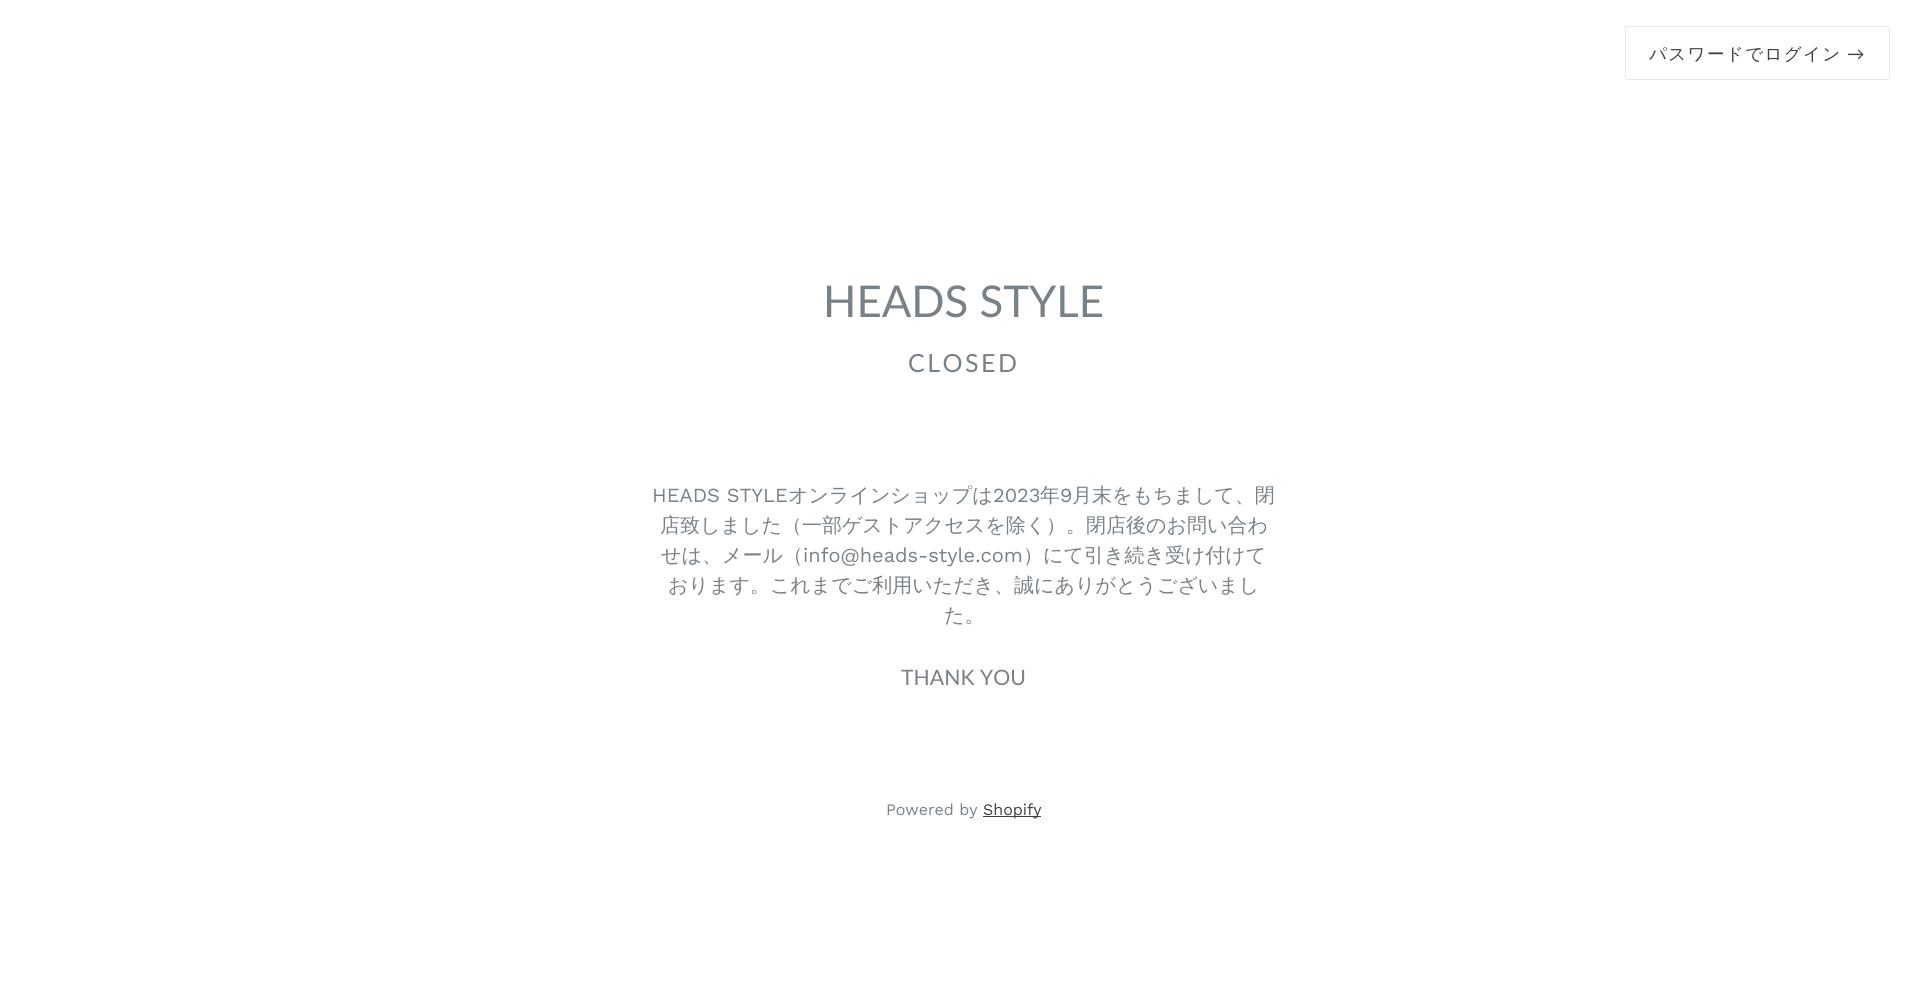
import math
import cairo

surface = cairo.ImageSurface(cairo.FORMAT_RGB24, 1927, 990)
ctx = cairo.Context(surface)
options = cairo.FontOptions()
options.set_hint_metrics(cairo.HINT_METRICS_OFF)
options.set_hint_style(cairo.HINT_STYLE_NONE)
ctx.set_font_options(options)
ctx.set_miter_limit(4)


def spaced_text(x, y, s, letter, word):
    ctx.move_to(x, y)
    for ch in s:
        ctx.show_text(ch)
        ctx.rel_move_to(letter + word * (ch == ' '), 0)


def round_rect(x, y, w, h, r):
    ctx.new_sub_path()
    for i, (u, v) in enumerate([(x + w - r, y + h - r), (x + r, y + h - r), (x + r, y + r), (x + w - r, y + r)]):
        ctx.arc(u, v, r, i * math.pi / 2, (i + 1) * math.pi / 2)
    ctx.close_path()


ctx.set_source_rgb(1, 1, 1)
ctx.paint()
round_rect(1625.5, 26.5, 264, 53, 2)
ctx.set_source_rgb(0.91, 0.914, 0.922)
ctx.set_line_width(1)
ctx.stroke()
ctx.select_font_face("WenQuanYi Zen Hei Medium")
ctx.set_font_size(17.5)
ctx.set_source_rgb(0.239, 0.259, 0.275)
spaced_text(1649, 60, "パスワードでログイン", 1.4, 0)
ctx.select_font_face("Lato")
spaced_text(1847, 60, "→", 1.4, 0)
ctx.set_font_size(43.75)
ctx.set_source_rgb(0.471, 0.506, 0.533)
ctx.move_to(823, 317)
ctx.show_text("HEADS STYLE")
ctx.set_font_size(25)
spaced_text(908, 372, "CLOSED", 2.5, 0)
ctx.select_font_face("Work Sans")
ctx.set_font_size(20)
ctx.move_to(652, 502)
ctx.show_text("HEADS STYLE")
ctx.select_font_face("WenQuanYi Zen Hei Medium")
ctx.move_to(788, 502)
ctx.show_text("オンラインショップは")
ctx.select_font_face("Work Sans")
ctx.move_to(993, 502)
ctx.show_text("2023")
ctx.select_font_face("WenQuanYi Zen Hei Medium")
ctx.move_to(1040, 502)
ctx.show_text("年")
ctx.select_font_face("Work Sans")
ctx.move_to(1060, 502)
ctx.show_text("9")
ctx.select_font_face("WenQuanYi Zen Hei Medium")
ctx.move_to(1072, 502)
ctx.show_text("月末をもちまして、閉")
ctx.move_to(660, 532)
ctx.show_text("店致しました（一部ゲストアクセスを除く）。閉店後のお問い合わ")
ctx.move_to(661, 562)
ctx.show_text("せは、メール（")
ctx.select_font_face("Work Sans")
ctx.move_to(803, 562)
ctx.show_text("info@heads-style.com")
ctx.select_font_face("WenQuanYi Zen Hei Medium")
ctx.move_to(1023, 562)
ctx.show_text("）にて引き続き受け付けて")
ctx.move_to(668, 592)
ctx.show_text("おります。これまでご利用いただき、誠にありがとうございまし")
ctx.move_to(944, 622)
ctx.show_text("た。")
ctx.select_font_face("Lato")
ctx.set_font_size(21.25)
ctx.move_to(901, 685)
ctx.show_text("THANK YOU")
ctx.select_font_face("Work Sans")
ctx.set_font_size(16)
ctx.move_to(886, 815)
ctx.show_text("Powered by")
ctx.set_source_rgb(0.239, 0.259, 0.275)
ctx.rectangle(983, 816, 58, 1)
ctx.fill()
ctx.move_to(983, 815)
ctx.show_text("Shopify")
surface.write_to_png("page.png")
